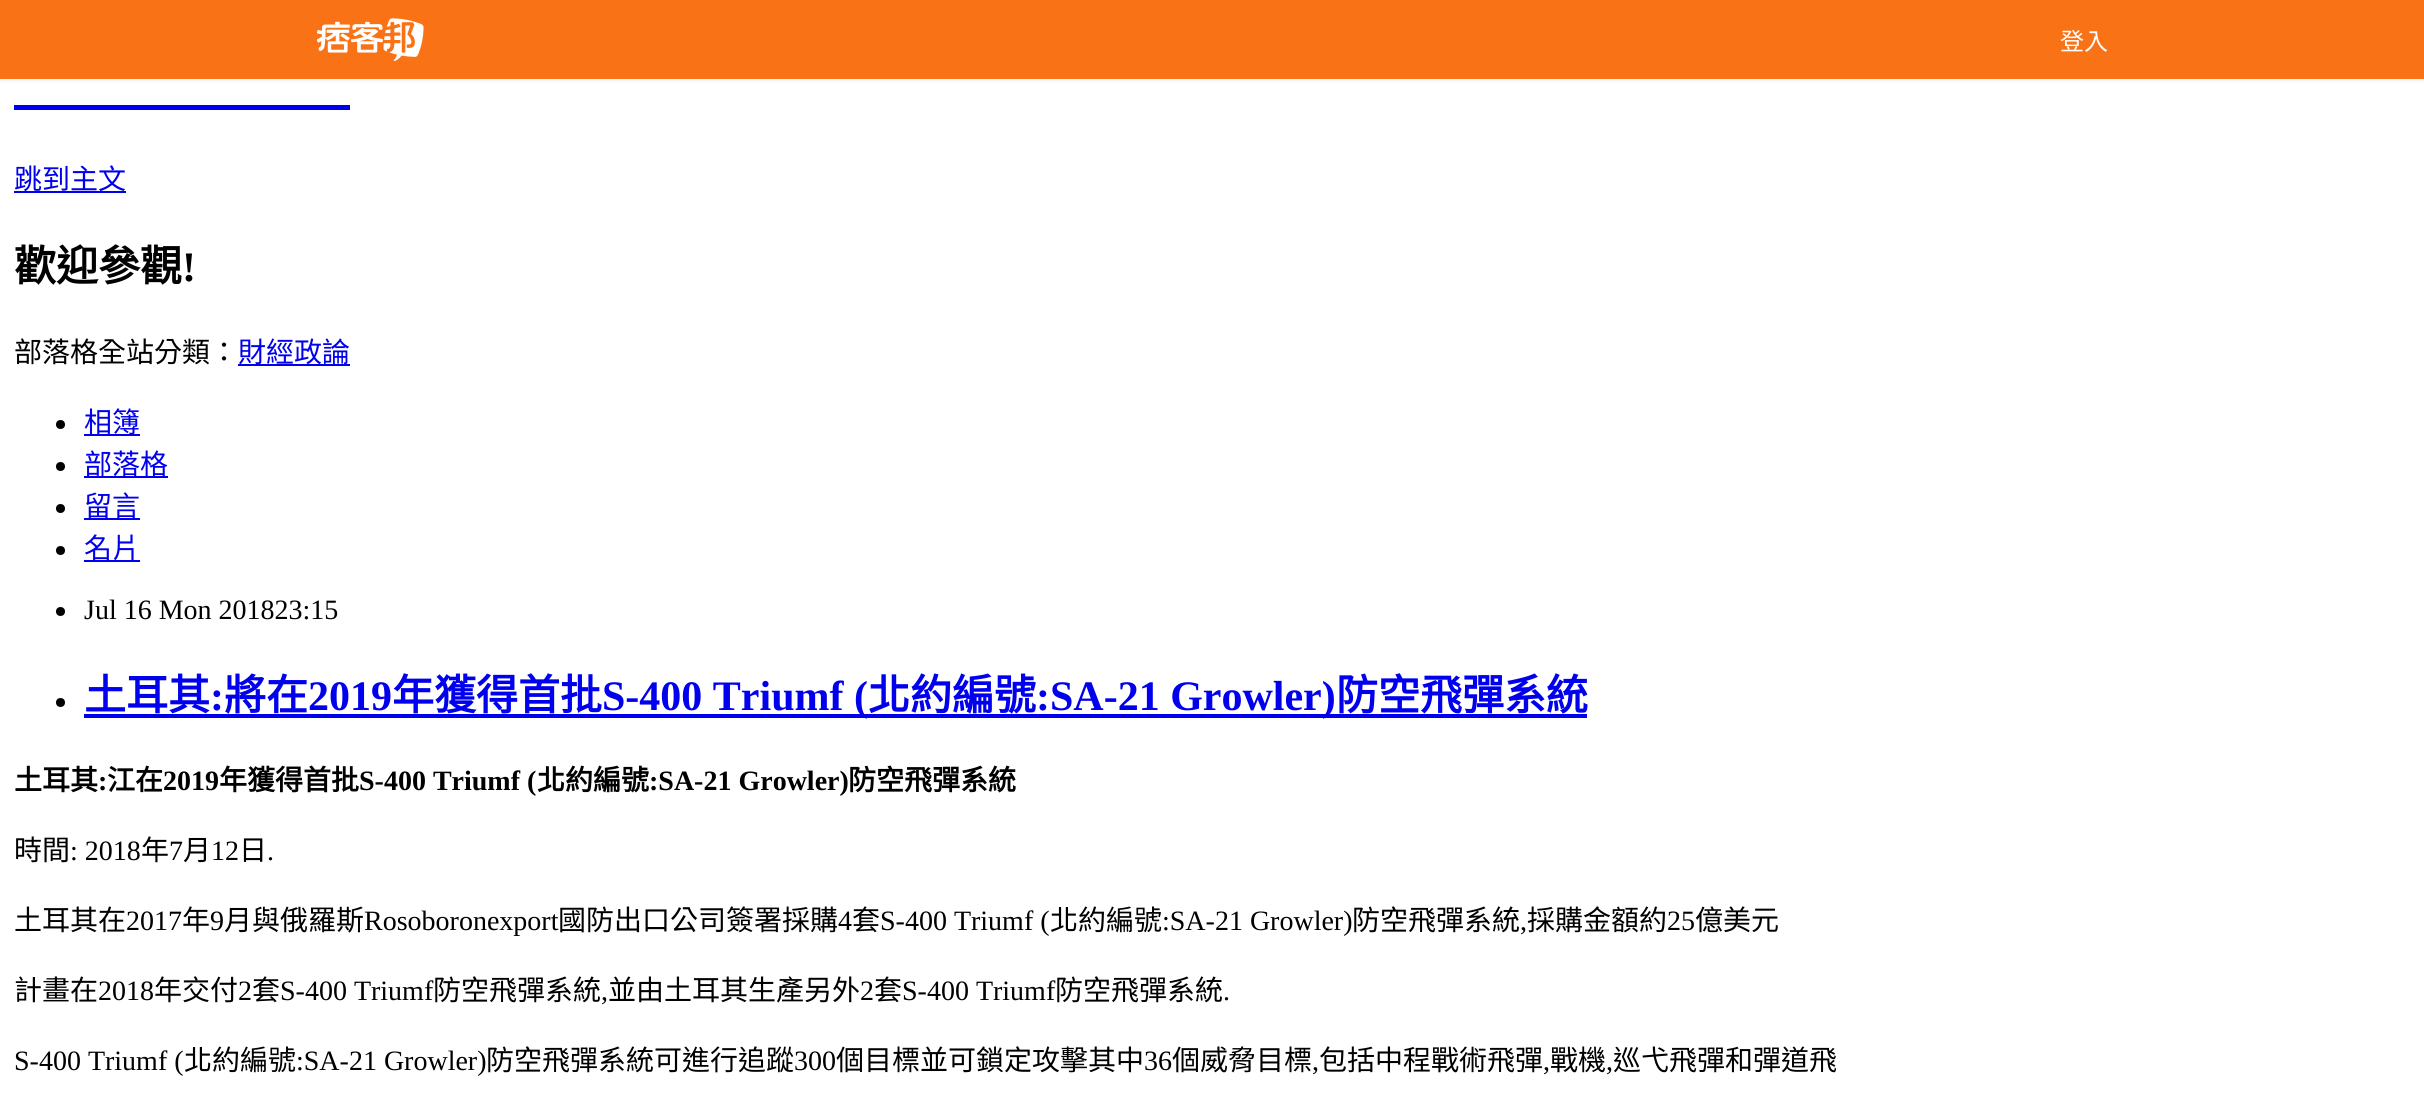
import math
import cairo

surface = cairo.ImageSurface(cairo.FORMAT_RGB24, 2424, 1110)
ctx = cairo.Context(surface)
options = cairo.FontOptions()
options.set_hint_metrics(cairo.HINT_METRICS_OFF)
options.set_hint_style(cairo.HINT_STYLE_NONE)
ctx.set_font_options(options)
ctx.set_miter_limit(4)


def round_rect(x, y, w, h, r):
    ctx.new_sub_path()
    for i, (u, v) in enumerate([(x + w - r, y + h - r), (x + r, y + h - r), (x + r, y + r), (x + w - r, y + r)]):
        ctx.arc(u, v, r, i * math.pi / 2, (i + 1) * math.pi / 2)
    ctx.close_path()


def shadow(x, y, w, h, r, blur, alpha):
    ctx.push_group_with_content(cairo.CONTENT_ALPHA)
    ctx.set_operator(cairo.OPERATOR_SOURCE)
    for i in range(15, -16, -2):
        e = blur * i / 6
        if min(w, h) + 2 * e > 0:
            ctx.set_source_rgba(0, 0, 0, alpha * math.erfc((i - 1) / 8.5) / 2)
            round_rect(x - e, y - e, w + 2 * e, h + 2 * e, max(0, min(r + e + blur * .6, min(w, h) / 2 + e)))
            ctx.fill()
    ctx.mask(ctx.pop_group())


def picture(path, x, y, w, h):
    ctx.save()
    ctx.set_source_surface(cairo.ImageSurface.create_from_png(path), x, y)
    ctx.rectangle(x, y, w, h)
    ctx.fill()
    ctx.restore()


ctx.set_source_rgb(1, 1, 1)
ctx.paint()
ctx.set_source_rgb(0, 0, 0)
shadow(0, 2, 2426, 79, 0, 2, 0.05)
ctx.set_source_rgb(0.976, 0.451, 0.086)
ctx.rectangle(0, 0, 2424, 79)
ctx.fill()
picture("img1.png", 317, 18, 107, 43)
ctx.select_font_face("Noto Sans CJK TC")
ctx.set_font_size(24)
ctx.set_source_rgb(1, 1, 1)
ctx.move_to(2060, 50)
ctx.show_text("登入")
ctx.set_source_rgb(0, 0, 0.933)
ctx.rectangle(14, 105, 336, 5)
ctx.fill()
ctx.rectangle(14, 191, 112, 2)
ctx.fill()
ctx.set_font_size(28)
ctx.move_to(14, 189)
ctx.show_text("跳到主文")
ctx.select_font_face("Noto Sans CJK TC", cairo.FONT_SLANT_NORMAL, cairo.FONT_WEIGHT_BOLD)
ctx.set_font_size(42)
ctx.set_source_rgb(0, 0, 0)
ctx.move_to(14, 281)
ctx.show_text("歡迎參觀")
ctx.select_font_face("Liberation Serif", cairo.FONT_SLANT_NORMAL, cairo.FONT_WEIGHT_BOLD)
ctx.move_to(182, 281)
ctx.show_text("!")
ctx.select_font_face("Noto Sans CJK TC")
ctx.set_font_size(28)
ctx.move_to(14, 362)
ctx.show_text("部落格全站分類：")
ctx.set_source_rgb(0, 0, 0.933)
ctx.rectangle(238, 364, 112, 2)
ctx.fill()
ctx.move_to(238, 362)
ctx.show_text("財經政論")
ctx.set_source_rgb(0, 0, 0)
ctx.new_path()
ctx.arc(60.5, 424.5, 4.5, 0, 2 * math.pi)
ctx.fill()
ctx.set_source_rgb(0, 0, 0.933)
ctx.rectangle(84, 434, 56, 2)
ctx.fill()
ctx.move_to(84, 432)
ctx.show_text("相簿")
ctx.set_source_rgb(0, 0, 0)
ctx.new_path()
ctx.arc(60.5, 466.5, 4.5, 0, 2 * math.pi)
ctx.fill()
ctx.set_source_rgb(0, 0, 0.933)
ctx.rectangle(84, 476, 84, 2)
ctx.fill()
ctx.move_to(84, 474)
ctx.show_text("部落格")
ctx.set_source_rgb(0, 0, 0)
ctx.new_path()
ctx.arc(60.5, 508.5, 4.5, 0, 2 * math.pi)
ctx.fill()
ctx.set_source_rgb(0, 0, 0.933)
ctx.rectangle(84, 518, 56, 2)
ctx.fill()
ctx.move_to(84, 516)
ctx.show_text("留言")
ctx.set_source_rgb(0, 0, 0)
ctx.new_path()
ctx.arc(60.5, 550.5, 4.5, 0, 2 * math.pi)
ctx.fill()
ctx.set_source_rgb(0, 0, 0.933)
ctx.rectangle(84, 560, 56, 2)
ctx.fill()
ctx.move_to(84, 558)
ctx.show_text("名片")
ctx.set_source_rgb(0, 0, 0)
ctx.new_path()
ctx.arc(60.5, 611.5, 4.5, 0, 2 * math.pi)
ctx.fill()
ctx.select_font_face("Liberation Serif")
ctx.move_to(84, 619)
ctx.show_text("Jul 16 Mon 201823:15")
ctx.new_path()
ctx.arc(60.5, 702.5, 4.5, 0, 2 * math.pi)
ctx.fill()
ctx.select_font_face("Noto Sans CJK TC", cairo.FONT_SLANT_NORMAL, cairo.FONT_WEIGHT_BOLD)
ctx.set_font_size(42)
ctx.set_source_rgb(0, 0, 0.933)
ctx.move_to(84, 710)
ctx.show_text("土耳其")
ctx.select_font_face("Liberation Serif", cairo.FONT_SLANT_NORMAL, cairo.FONT_WEIGHT_BOLD)
ctx.move_to(210, 710)
ctx.show_text(":")
ctx.rectangle(84, 714, 1503, 4)
ctx.fill()
ctx.select_font_face("Noto Sans CJK TC", cairo.FONT_SLANT_NORMAL, cairo.FONT_WEIGHT_BOLD)
ctx.move_to(224, 710)
ctx.show_text("將在")
ctx.select_font_face("Liberation Serif", cairo.FONT_SLANT_NORMAL, cairo.FONT_WEIGHT_BOLD)
ctx.move_to(308, 710)
ctx.show_text("2019")
ctx.select_font_face("Noto Sans CJK TC", cairo.FONT_SLANT_NORMAL, cairo.FONT_WEIGHT_BOLD)
ctx.move_to(392, 710)
ctx.show_text("年獲得首批")
ctx.select_font_face("Liberation Serif", cairo.FONT_SLANT_NORMAL, cairo.FONT_WEIGHT_BOLD)
ctx.move_to(602, 710)
ctx.show_text("S-400 Triumf (")
ctx.select_font_face("Noto Sans CJK TC", cairo.FONT_SLANT_NORMAL, cairo.FONT_WEIGHT_BOLD)
ctx.move_to(868, 710)
ctx.show_text("北約編號")
ctx.select_font_face("Liberation Serif", cairo.FONT_SLANT_NORMAL, cairo.FONT_WEIGHT_BOLD)
ctx.move_to(1036, 710)
ctx.show_text(":SA-21 Growler)")
ctx.select_font_face("Noto Sans CJK TC", cairo.FONT_SLANT_NORMAL, cairo.FONT_WEIGHT_BOLD)
ctx.move_to(1336, 710)
ctx.show_text("防空飛彈系統")
ctx.set_font_size(28)
ctx.set_source_rgb(0, 0, 0)
ctx.move_to(14, 790)
ctx.show_text("土耳其")
ctx.select_font_face("Liberation Serif", cairo.FONT_SLANT_NORMAL, cairo.FONT_WEIGHT_BOLD)
ctx.move_to(98, 790)
ctx.show_text(":")
ctx.select_font_face("Noto Sans CJK TC", cairo.FONT_SLANT_NORMAL, cairo.FONT_WEIGHT_BOLD)
ctx.move_to(107, 790)
ctx.show_text("江在")
ctx.select_font_face("Liberation Serif", cairo.FONT_SLANT_NORMAL, cairo.FONT_WEIGHT_BOLD)
ctx.move_to(163, 790)
ctx.show_text("2019")
ctx.select_font_face("Noto Sans CJK TC", cairo.FONT_SLANT_NORMAL, cairo.FONT_WEIGHT_BOLD)
ctx.move_to(219, 790)
ctx.show_text("年獲得首批")
ctx.select_font_face("Liberation Serif", cairo.FONT_SLANT_NORMAL, cairo.FONT_WEIGHT_BOLD)
ctx.move_to(359, 790)
ctx.show_text("S-400 Triumf (")
ctx.select_font_face("Noto Sans CJK TC", cairo.FONT_SLANT_NORMAL, cairo.FONT_WEIGHT_BOLD)
ctx.move_to(537, 790)
ctx.show_text("北約編號")
ctx.select_font_face("Liberation Serif", cairo.FONT_SLANT_NORMAL, cairo.FONT_WEIGHT_BOLD)
ctx.move_to(649, 790)
ctx.show_text(":SA-21 Growler)")
ctx.select_font_face("Noto Sans CJK TC", cairo.FONT_SLANT_NORMAL, cairo.FONT_WEIGHT_BOLD)
ctx.move_to(848, 790)
ctx.show_text("防空飛彈系統")
ctx.select_font_face("Noto Sans CJK TC")
ctx.move_to(14, 860)
ctx.show_text("時間")
ctx.select_font_face("Liberation Serif")
ctx.move_to(70, 860)
ctx.show_text(": 2018")
ctx.select_font_face("Noto Sans CJK TC")
ctx.move_to(141, 860)
ctx.show_text("年")
ctx.select_font_face("Liberation Serif")
ctx.move_to(169, 860)
ctx.show_text("7")
ctx.select_font_face("Noto Sans CJK TC")
ctx.move_to(183, 860)
ctx.show_text("月")
ctx.select_font_face("Liberation Serif")
ctx.move_to(211, 860)
ctx.show_text("12")
ctx.select_font_face("Noto Sans CJK TC")
ctx.move_to(239, 860)
ctx.show_text("日")
ctx.select_font_face("Liberation Serif")
ctx.move_to(267, 860)
ctx.show_text(".")
ctx.select_font_face("Noto Sans CJK TC")
ctx.move_to(14, 930)
ctx.show_text("土耳其在")
ctx.select_font_face("Liberation Serif")
ctx.move_to(126, 930)
ctx.show_text("2017")
ctx.select_font_face("Noto Sans CJK TC")
ctx.move_to(182, 930)
ctx.show_text("年")
ctx.select_font_face("Liberation Serif")
ctx.move_to(210, 930)
ctx.show_text("9")
ctx.select_font_face("Noto Sans CJK TC")
ctx.move_to(224, 930)
ctx.show_text("月與俄羅斯")
ctx.select_font_face("Liberation Serif")
ctx.move_to(364, 930)
ctx.show_text("Rosoboronexport")
ctx.select_font_face("Noto Sans CJK TC")
ctx.move_to(558, 930)
ctx.show_text("國防出口公司簽署採購")
ctx.select_font_face("Liberation Serif")
ctx.move_to(838, 930)
ctx.show_text("4")
ctx.select_font_face("Noto Sans CJK TC")
ctx.move_to(852, 930)
ctx.show_text("套")
ctx.select_font_face("Liberation Serif")
ctx.move_to(880, 930)
ctx.show_text("S-400 Triumf (")
ctx.select_font_face("Noto Sans CJK TC")
ctx.move_to(1050, 930)
ctx.show_text("北約編號")
ctx.select_font_face("Liberation Serif")
ctx.move_to(1162, 930)
ctx.show_text(":SA-21 Growler)")
ctx.select_font_face("Noto Sans CJK TC")
ctx.move_to(1352, 930)
ctx.show_text("防空飛彈系統")
ctx.select_font_face("Liberation Serif")
ctx.move_to(1520, 930)
ctx.show_text(",")
ctx.select_font_face("Noto Sans CJK TC")
ctx.move_to(1527, 930)
ctx.show_text("採購金額約")
ctx.select_font_face("Liberation Serif")
ctx.move_to(1667, 930)
ctx.show_text("25")
ctx.select_font_face("Noto Sans CJK TC")
ctx.move_to(1695, 930)
ctx.show_text("億美元")
ctx.move_to(14, 1000)
ctx.show_text("計畫在")
ctx.select_font_face("Liberation Serif")
ctx.move_to(98, 1000)
ctx.show_text("2018")
ctx.select_font_face("Noto Sans CJK TC")
ctx.move_to(154, 1000)
ctx.show_text("年交付")
ctx.select_font_face("Liberation Serif")
ctx.move_to(238, 1000)
ctx.show_text("2")
ctx.select_font_face("Noto Sans CJK TC")
ctx.move_to(252, 1000)
ctx.show_text("套")
ctx.select_font_face("Liberation Serif")
ctx.move_to(280, 1000)
ctx.show_text("S-400 Triumf")
ctx.select_font_face("Noto Sans CJK TC")
ctx.move_to(433, 1000)
ctx.show_text("防空飛彈系統")
ctx.move_to(608, 1000)
ctx.show_text("並由土耳其生產另外")
ctx.select_font_face("Liberation Serif")
ctx.move_to(860, 1000)
ctx.show_text("2")
ctx.select_font_face("Noto Sans CJK TC")
ctx.move_to(874, 1000)
ctx.show_text("套")
ctx.select_font_face("Liberation Serif")
ctx.move_to(902, 1000)
ctx.show_text("S-400 Triumf")
ctx.select_font_face("Noto Sans CJK TC")
ctx.move_to(1055, 1000)
ctx.show_text("防空飛彈系統")
ctx.select_font_face("Liberation Serif")
ctx.move_to(601, 1000)
ctx.show_text(",")
ctx.move_to(1223, 1000)
ctx.show_text(".")
ctx.move_to(14, 1070)
ctx.show_text("S-400 Triumf (")
ctx.select_font_face("Noto Sans CJK TC")
ctx.move_to(184, 1070)
ctx.show_text("北約編號")
ctx.select_font_face("Liberation Serif")
ctx.move_to(296, 1070)
ctx.show_text(":SA-21 Growler)")
ctx.select_font_face("Noto Sans CJK TC")
ctx.move_to(486, 1070)
ctx.show_text("防空飛彈系統可進行追蹤")
ctx.select_font_face("Liberation Serif")
ctx.move_to(794, 1070)
ctx.show_text("300")
ctx.select_font_face("Noto Sans CJK TC")
ctx.move_to(836, 1070)
ctx.show_text("個目標並可鎖定攻擊其中")
ctx.select_font_face("Liberation Serif")
ctx.move_to(1144, 1070)
ctx.show_text("36")
ctx.select_font_face("Noto Sans CJK TC")
ctx.move_to(1172, 1070)
ctx.show_text("個威脅目標")
ctx.select_font_face("Liberation Serif")
ctx.move_to(1312, 1070)
ctx.show_text(",")
ctx.select_font_face("Noto Sans CJK TC")
ctx.move_to(1319, 1070)
ctx.show_text("包括中程戰術飛彈")
ctx.select_font_face("Liberation Serif")
ctx.move_to(1543, 1070)
ctx.show_text(",")
ctx.select_font_face("Noto Sans CJK TC")
ctx.move_to(1550, 1070)
ctx.show_text("戰機")
ctx.select_font_face("Liberation Serif")
ctx.move_to(1606, 1070)
ctx.show_text(",")
ctx.select_font_face("Noto Sans CJK TC")
ctx.move_to(1613, 1070)
ctx.show_text("巡弋飛彈和彈道飛")
surface.write_to_png("page.png")
